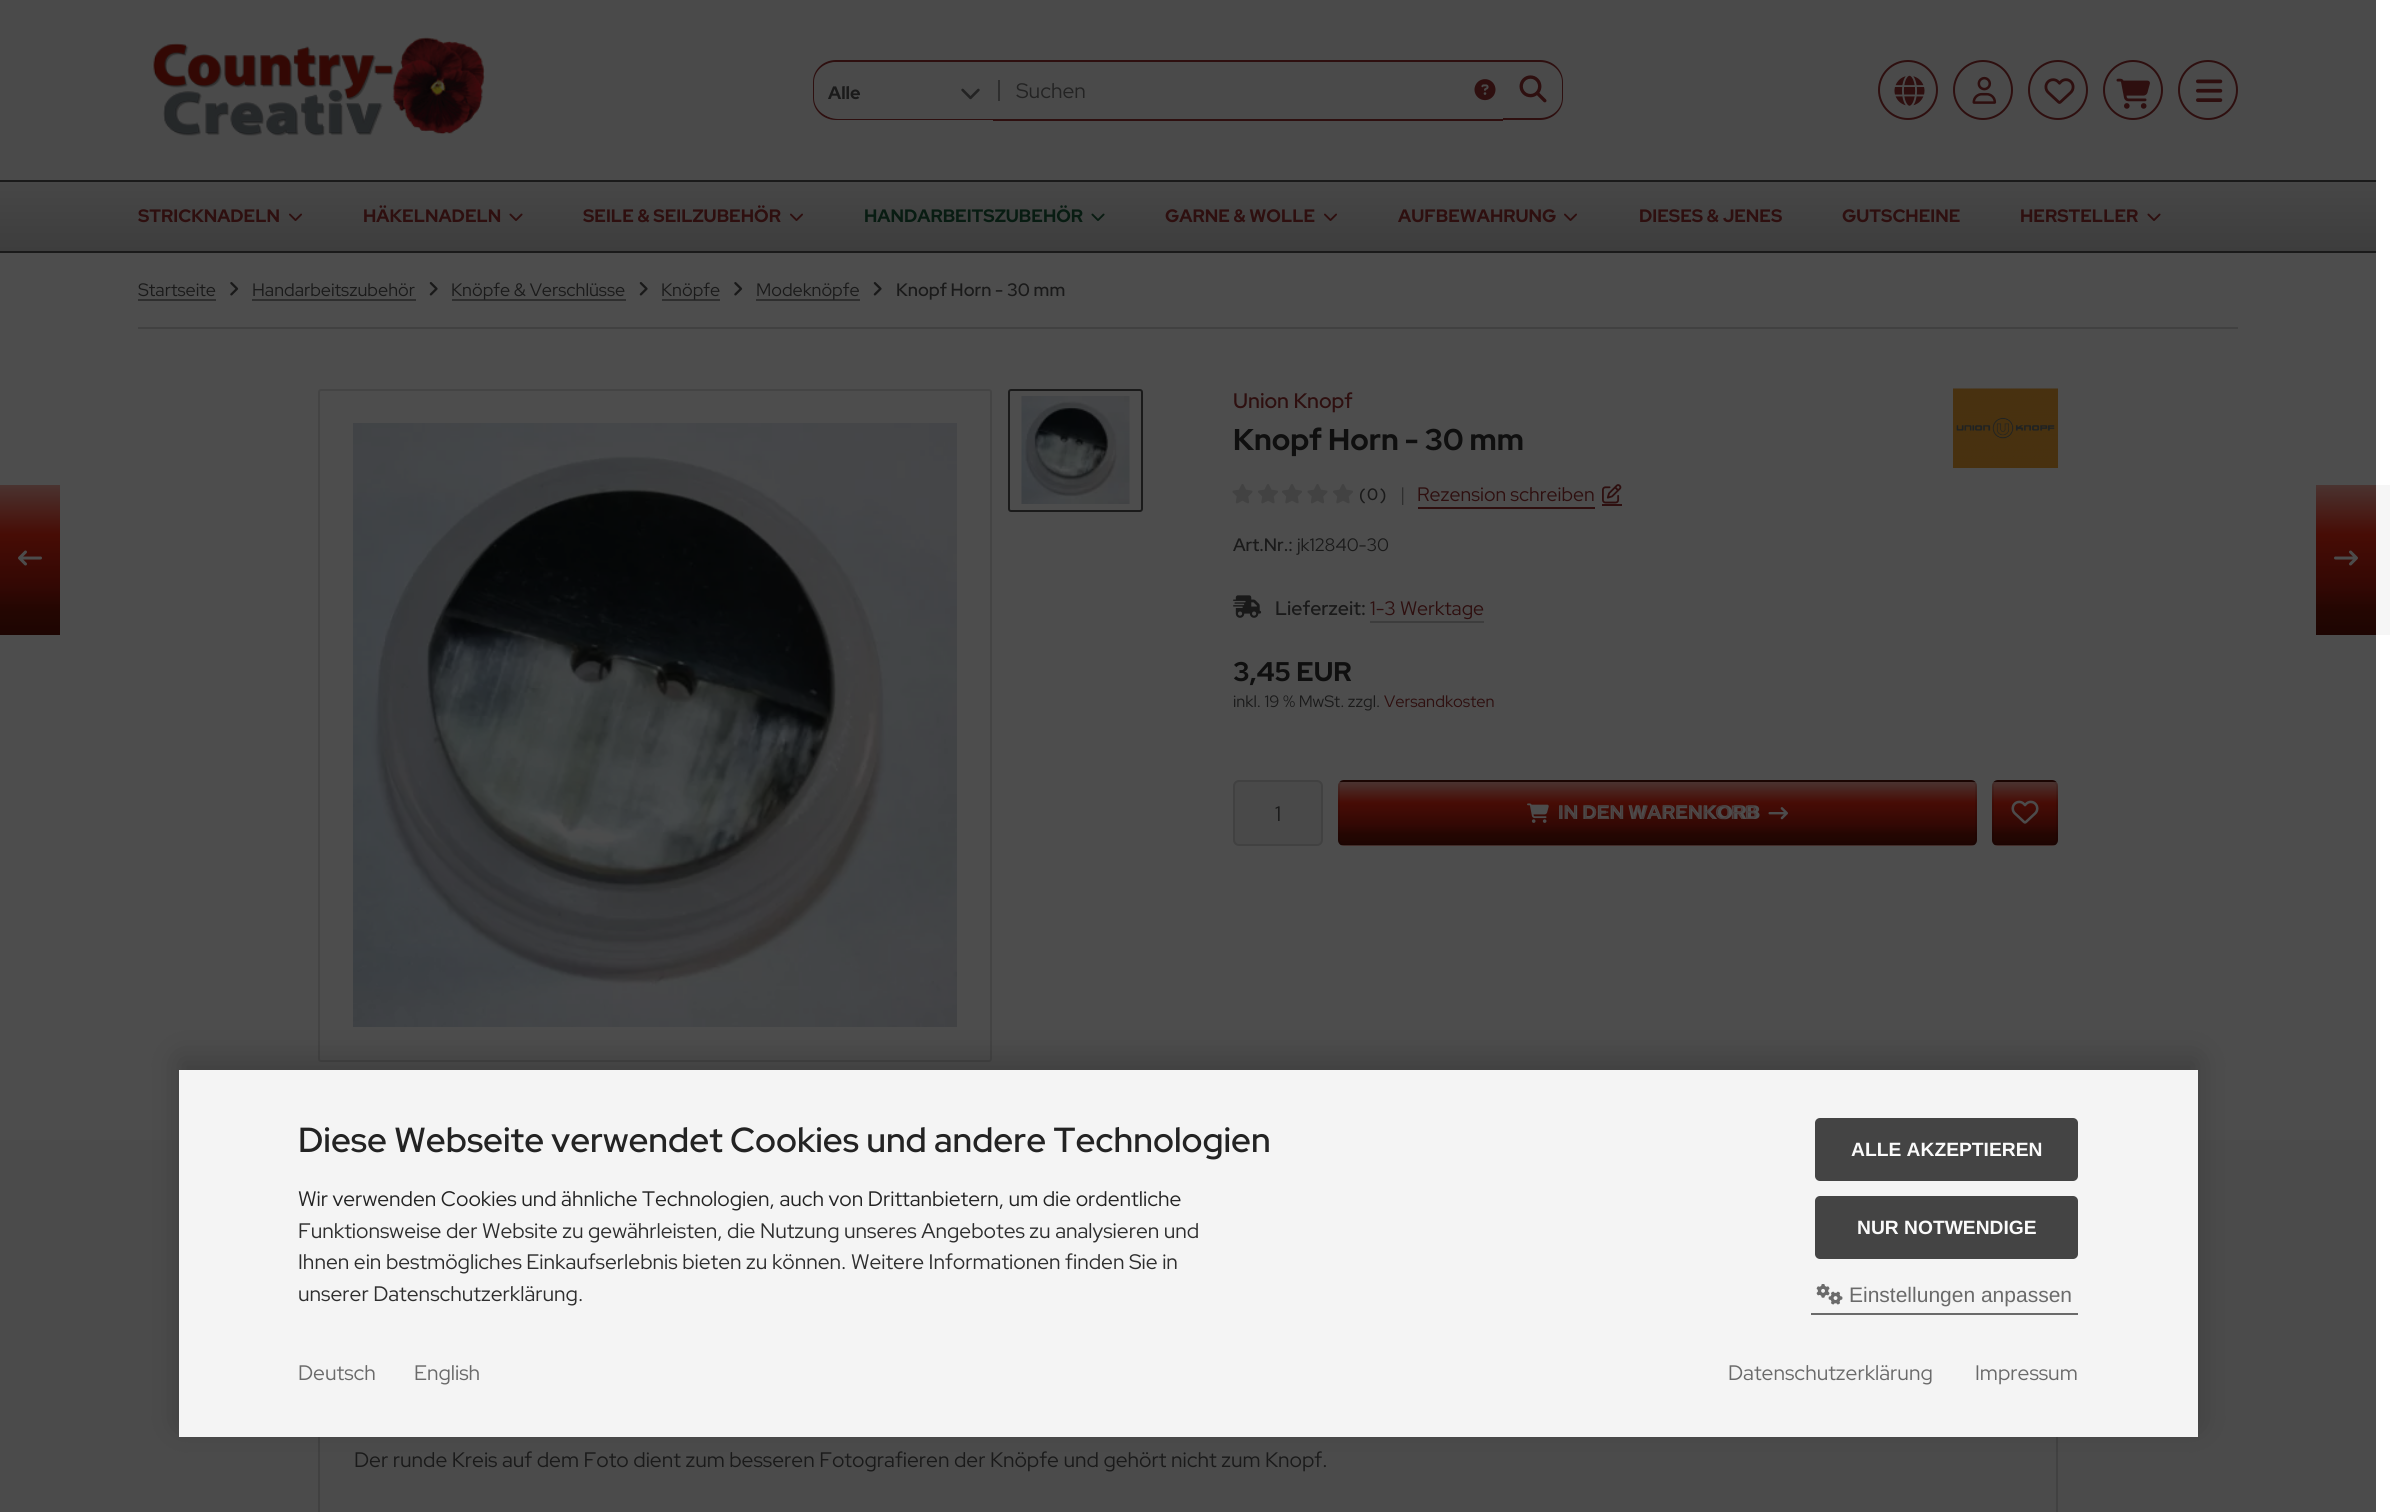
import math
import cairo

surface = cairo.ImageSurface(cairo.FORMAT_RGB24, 2390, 1512)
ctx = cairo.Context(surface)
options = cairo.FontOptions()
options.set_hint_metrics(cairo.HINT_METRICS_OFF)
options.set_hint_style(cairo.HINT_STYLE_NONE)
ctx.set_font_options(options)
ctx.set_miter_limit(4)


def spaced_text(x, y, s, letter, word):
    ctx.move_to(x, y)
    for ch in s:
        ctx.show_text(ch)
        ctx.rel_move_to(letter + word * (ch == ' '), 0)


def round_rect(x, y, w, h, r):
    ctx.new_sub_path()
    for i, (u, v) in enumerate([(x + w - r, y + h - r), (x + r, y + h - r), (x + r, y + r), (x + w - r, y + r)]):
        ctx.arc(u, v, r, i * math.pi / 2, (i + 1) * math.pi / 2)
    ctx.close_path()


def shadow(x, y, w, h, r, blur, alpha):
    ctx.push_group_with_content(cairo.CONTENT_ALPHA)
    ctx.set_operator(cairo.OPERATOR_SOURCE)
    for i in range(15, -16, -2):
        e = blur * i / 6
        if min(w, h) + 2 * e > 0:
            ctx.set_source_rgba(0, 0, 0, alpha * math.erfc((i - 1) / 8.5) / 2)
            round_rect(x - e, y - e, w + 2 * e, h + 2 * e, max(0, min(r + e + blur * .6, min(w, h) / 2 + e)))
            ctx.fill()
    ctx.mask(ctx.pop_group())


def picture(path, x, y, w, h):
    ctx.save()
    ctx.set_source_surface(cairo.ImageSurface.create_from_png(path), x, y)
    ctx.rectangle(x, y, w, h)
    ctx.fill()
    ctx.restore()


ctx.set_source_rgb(1, 1, 1)
ctx.paint()
ctx.set_source_rgb(0.302, 0.302, 0.302)
ctx.rectangle(0, 253, 2376, 887)
ctx.fill()
ctx.set_source_rgb(0.29, 0.29, 0.29)
ctx.rectangle(0, 0, 2376, 180)
ctx.fill()
picture("img1.png", 152, 37, 333, 99)
ctx.set_source_rgb(0.18, 0.059, 0.059)
ctx.set_fill_rule(cairo.FILL_RULE_EVEN_ODD)
ctx.new_path()
ctx.move_to(836, 60)
ctx.line_to(993, 60)
ctx.line_to(993, 120)
ctx.line_to(836, 120)
ctx.curve_to(823, 120, 813, 110, 813, 98)
ctx.line_to(813, 82)
ctx.curve_to(813, 70, 823, 60, 836, 60)
ctx.close_path()
ctx.move_to(836, 62)
ctx.line_to(993, 62)
ctx.line_to(993, 118)
ctx.line_to(836, 118)
ctx.curve_to(824, 118, 814, 109, 814, 98)
ctx.line_to(814, 82)
ctx.curve_to(814, 71, 824, 62, 836, 62)
ctx.close_path()
ctx.fill()
ctx.set_source_rgb(0.29, 0.29, 0.29)
ctx.new_path()
ctx.move_to(838, 62)
ctx.line_to(993, 62)
ctx.line_to(993, 119)
ctx.line_to(838, 119)
ctx.curve_to(825.5, 119, 815, 108.5, 815, 96)
ctx.line_to(815, 85)
ctx.curve_to(815, 72.5, 825.5, 62, 838, 62)
ctx.close_path()
ctx.fill()
ctx.select_font_face("Red Hat Display", cairo.FONT_SLANT_NORMAL, cairo.FONT_WEIGHT_BOLD)
ctx.set_font_size(18)
ctx.set_source_rgb(0.102, 0.102, 0.102)
ctx.move_to(828, 99)
ctx.show_text("Alle")
picture("img2.png", 961, 88, 19, 12)
ctx.set_source_rgb(0.18, 0.18, 0.18)
ctx.rectangle(998, 80, 2, 21)
ctx.fill()
ctx.set_source_rgb(0.18, 0.059, 0.059)
ctx.rectangle(993, 60, 510, 2)
ctx.fill()
ctx.rectangle(993, 119, 510, 2)
ctx.fill()
ctx.select_font_face("Red Hat Display")
ctx.set_font_size(21)
ctx.set_source_rgb(0.137, 0.137, 0.137)
ctx.move_to(1016, 98)
ctx.show_text("Suchen")
picture("img3.png", 1474, 79, 22, 22)
ctx.set_source_rgb(0.18, 0.059, 0.059)
ctx.new_path()
ctx.move_to(1503, 60)
ctx.line_to(1540, 60)
ctx.curve_to(1553, 60, 1563, 70, 1563, 82)
ctx.line_to(1563, 98)
ctx.curve_to(1563, 110, 1553, 120, 1540, 120)
ctx.line_to(1503, 120)
ctx.close_path()
ctx.move_to(1503, 62)
ctx.line_to(1540, 62)
ctx.curve_to(1552, 62, 1562, 71, 1562, 82)
ctx.line_to(1562, 98)
ctx.curve_to(1562, 109, 1552, 118, 1540, 118)
ctx.line_to(1503, 118)
ctx.close_path()
ctx.fill()
picture("img4.png", 1519, 75, 28, 28)
ctx.arc(1908, 90, 29, 0, 2 * math.pi)
ctx.stroke()
picture("img5.png", 1894, 75, 31, 31)
ctx.arc(1983, 90, 29, 0, 2 * math.pi)
ctx.stroke()
picture("img6.png", 1972, 76, 25, 28)
ctx.arc(2058, 90, 29, 0, 2 * math.pi)
ctx.stroke()
picture("img7.png", 2044, 78, 31, 26)
ctx.arc(2133, 90, 29, 0, 2 * math.pi)
ctx.stroke()
picture("img8.png", 2116, 78, 34, 31)
ctx.arc(2208, 90, 29, 0, 2 * math.pi)
ctx.stroke()
picture("img9.png", 2196, 79, 27, 23)
gradient = cairo.LinearGradient(1188, 181, 1188, 251)
gradient.add_color_stop_rgba(0, 0.278, 0.278, 0.278, 1)
gradient.add_color_stop_rgba(1, 0.239, 0.239, 0.239, 1)
ctx.set_source(gradient)
ctx.rectangle(0, 182, 2376, 69)
ctx.fill()
ctx.set_source_rgb(0.102, 0.102, 0.102)
ctx.rectangle(0, 180, 2376, 2)
ctx.fill()
ctx.rectangle(0, 251, 2376, 2)
ctx.fill()
ctx.select_font_face("Red Hat Display", cairo.FONT_SLANT_NORMAL, cairo.FONT_WEIGHT_BOLD)
ctx.set_font_size(18)
ctx.set_source_rgb(0.18, 0.059, 0.059)
ctx.move_to(138, 222)
ctx.show_text("STRICKNADELN")
picture("img10.png", 289, 213, 13, 8)
ctx.move_to(363, 222)
ctx.show_text("HÄKELNADELN")
picture("img11.png", 509, 213, 14, 8)
ctx.move_to(583, 222)
ctx.show_text("SEILE & SEILZUBEHÖR")
picture("img10.png", 790, 213, 13, 8)
ctx.set_source_rgb(0.035, 0.11, 0.071)
ctx.move_to(864, 222)
ctx.show_text("HANDARBEITSZUBEHÖR")
picture("img12.png", 1091, 213, 14, 8)
ctx.set_source_rgb(0.18, 0.059, 0.059)
ctx.move_to(1165, 222)
ctx.show_text("GARNE & WOLLE")
picture("img10.png", 1324, 213, 13, 8)
ctx.move_to(1398, 222)
ctx.show_text("AUFBEWAHRUNG")
picture("img10.png", 1564, 213, 13, 8)
ctx.move_to(1639, 222)
ctx.show_text("DIESES & JENES")
ctx.move_to(1842, 222)
ctx.show_text("GUTSCHEINE")
ctx.move_to(2020, 222)
ctx.show_text("HERSTELLER")
picture("img11.png", 2147, 213, 14, 8)
ctx.set_source_rgb(0.255, 0.255, 0.255)
ctx.rectangle(138, 327, 2100, 2)
ctx.fill()
ctx.set_source_rgb(0.18, 0.18, 0.18)
ctx.rectangle(138, 299, 78, 2)
ctx.fill()
ctx.select_font_face("Red Hat Display")
ctx.set_source_rgb(0.102, 0.102, 0.102)
ctx.move_to(138, 296)
ctx.show_text("Startseite")
picture("img13.png", 230, 282, 9, 14)
ctx.set_source_rgb(0.18, 0.18, 0.18)
ctx.rectangle(252, 299, 164, 2)
ctx.fill()
ctx.set_source_rgb(0.102, 0.102, 0.102)
ctx.move_to(252, 296)
ctx.show_text("Handarbeitszubehör")
picture("img14.png", 429, 282, 9, 14)
ctx.set_source_rgb(0.18, 0.18, 0.18)
ctx.rectangle(452, 299, 174, 2)
ctx.fill()
ctx.set_source_rgb(0.102, 0.102, 0.102)
ctx.move_to(451, 296)
ctx.show_text("Knöpfe & Verschlüsse")
picture("img14.png", 639, 282, 9, 14)
ctx.set_source_rgb(0.18, 0.18, 0.18)
ctx.rectangle(662, 299, 58, 2)
ctx.fill()
ctx.set_source_rgb(0.102, 0.102, 0.102)
ctx.move_to(661, 296)
ctx.show_text("Knöpfe")
picture("img13.png", 734, 282, 9, 14)
ctx.set_source_rgb(0.18, 0.18, 0.18)
ctx.rectangle(756, 299, 104, 2)
ctx.fill()
ctx.set_source_rgb(0.102, 0.102, 0.102)
ctx.move_to(756, 296)
ctx.show_text("Modeknöpfe")
picture("img14.png", 873, 282, 9, 14)
ctx.select_font_face("Red Hat Display SemiBold")
ctx.move_to(896, 296)
ctx.show_text("Knopf Horn - 30 mm")
round_rect(319, 390, 672, 671, 2)
ctx.set_source_rgb(0.267, 0.267, 0.267)
ctx.stroke()
picture("img15.png", 353, 423, 604, 604)
round_rect(1009, 390, 133, 121, 2)
ctx.set_source_rgb(0.102, 0.102, 0.102)
ctx.stroke()
picture("img16.png", 1021, 396, 109, 108)
ctx.set_font_size(21)
ctx.set_source_rgb(0.18, 0.059, 0.059)
ctx.move_to(1233, 408)
ctx.show_text("Union Knopf")
picture("img17.png", 1953, 388, 105, 80)
ctx.select_font_face("Red Hat Display", cairo.FONT_SLANT_NORMAL, cairo.FONT_WEIGHT_BOLD)
ctx.set_font_size(30)
ctx.set_source_rgb(0.059, 0.059, 0.059)
ctx.move_to(1233, 450)
ctx.show_text("Knopf Horn - 30 mm")
picture("img18.png", 1232, 484, 21, 20)
picture("img19.png", 1258, 484, 20, 20)
picture("img19.png", 1282, 484, 20, 20)
picture("img18.png", 1307, 484, 21, 20)
picture("img19.png", 1333, 484, 20, 20)
ctx.select_font_face("Red Hat Display SemiBold")
ctx.set_font_size(16.5)
ctx.set_source_rgb(0.102, 0.102, 0.102)
spaced_text(1359, 500, "(0)", 1.5, 0)
ctx.select_font_face("Red Hat Display")
ctx.set_font_size(19.5)
ctx.set_source_rgb(0.18, 0.18, 0.18)
ctx.move_to(1400, 501)
ctx.show_text("|")
ctx.set_source_rgb(0.18, 0.059, 0.059)
ctx.move_to(1417, 501)
ctx.show_text("Rezension schreiben")
ctx.rectangle(1418, 507, 177, 2)
ctx.fill()
ctx.rectangle(1602, 504, 20, 2)
ctx.fill()
picture("img20.png", 1602, 484, 20, 20)
ctx.select_font_face("Red Hat Display SemiBold")
ctx.set_font_size(18)
ctx.set_source_rgb(0.102, 0.102, 0.102)
ctx.move_to(1233, 551)
ctx.show_text("Art.Nr.:")
ctx.select_font_face("Red Hat Display")
ctx.move_to(1297, 551)
ctx.show_text("jk12840-30")
picture("img21.png", 1233, 595, 29, 23)
ctx.select_font_face("Red Hat Display SemiBold")
ctx.set_font_size(19.5)
ctx.move_to(1275, 615)
ctx.show_text("Lieferzeit:")
ctx.select_font_face("Red Hat Display")
ctx.set_source_rgb(0.18, 0.059, 0.059)
ctx.move_to(1370, 615)
ctx.show_text("1-3 Werktage")
ctx.set_source_rgb(0.239, 0.239, 0.239)
ctx.rectangle(1370, 621, 114, 2)
ctx.fill()
ctx.select_font_face("Red Hat Display", cairo.FONT_SLANT_NORMAL, cairo.FONT_WEIGHT_BOLD)
ctx.set_font_size(27)
ctx.set_source_rgb(0.059, 0.059, 0.059)
ctx.move_to(1233, 681)
ctx.show_text("3,45 EUR")
ctx.select_font_face("Red Hat Display")
ctx.set_font_size(16.5)
ctx.set_source_rgb(0.102, 0.102, 0.102)
ctx.move_to(1233, 707)
ctx.show_text("inkl. 19 % MwSt. zzgl.")
ctx.set_source_rgb(0.18, 0.059, 0.059)
ctx.move_to(1384, 707)
ctx.show_text("Versandkosten")
ctx.set_source_rgb(0.286, 0.286, 0.286)
round_rect(1234, 781, 88, 64, 5)
ctx.fill_preserve()
ctx.set_source_rgb(0.255, 0.255, 0.255)
ctx.stroke()
ctx.set_font_size(21)
ctx.set_source_rgb(0.102, 0.102, 0.102)
ctx.move_to(1275, 821)
ctx.show_text("1")
ctx.save()
ctx.set_fill_rule(cairo.FILL_RULE_WINDING)
round_rect(1338, 780, 639, 66, 6)
ctx.clip()
gradient = cairo.LinearGradient(1658, 719, 1658, 782)
gradient.add_color_stop_rgba(0, 0.29, 0.2, 0.188, 1)
gradient.add_color_stop_rgba(0.17, 0.286, 0.122, 0.102, 1)
gradient.add_color_stop_rgba(0.33, 0.278, 0.047, 0.02, 1)
gradient.add_color_stop_rgba(0.67, 0.2, 0.031, 0.016, 1)
gradient.add_color_stop_rgba(0.83, 0.141, 0.024, 0.008, 1)
gradient.add_color_stop_rgba(1, 0.114, 0.02, 0.008, 1)
ctx.set_source(gradient)
ctx.rectangle(1338, 780, 639, 2)
ctx.fill()
gradient = cairo.LinearGradient(1658, 782, 1658, 845)
gradient.add_color_stop_rgba(0, 0.29, 0.2, 0.188, 1)
gradient.add_color_stop_rgba(0.17, 0.286, 0.122, 0.102, 1)
gradient.add_color_stop_rgba(0.33, 0.278, 0.047, 0.02, 1)
gradient.add_color_stop_rgba(0.67, 0.2, 0.031, 0.016, 1)
gradient.add_color_stop_rgba(0.83, 0.141, 0.024, 0.008, 1)
gradient.add_color_stop_rgba(1, 0.114, 0.02, 0.008, 1)
ctx.set_source(gradient)
ctx.rectangle(1338, 782, 639, 63)
ctx.fill()
gradient = cairo.LinearGradient(1658, 845, 1658, 908)
gradient.add_color_stop_rgba(0, 0.29, 0.2, 0.188, 1)
gradient.add_color_stop_rgba(0.17, 0.286, 0.122, 0.102, 1)
gradient.add_color_stop_rgba(0.33, 0.278, 0.047, 0.02, 1)
gradient.add_color_stop_rgba(0.67, 0.2, 0.031, 0.016, 1)
gradient.add_color_stop_rgba(0.83, 0.141, 0.024, 0.008, 1)
gradient.add_color_stop_rgba(1, 0.114, 0.02, 0.008, 1)
ctx.set_source(gradient)
ctx.rectangle(1338, 845, 639, 1)
ctx.fill()
ctx.restore()
round_rect(1339, 781, 637, 64, 5)
ctx.set_source_rgba(0, 0, 0, 0.1)
ctx.stroke()
picture("img22.png", 1527, 803, 22, 20)
ctx.select_font_face("Red Hat Display Black")
ctx.set_font_size(19.5)
ctx.set_source_rgb(0.302, 0.302, 0.302)
ctx.move_to(1558, 819)
ctx.show_text("IN DEN WARENKORB")
ctx.select_font_face("Liberation Sans")
ctx.set_source_rgb(0.29, 0.247, 0.243)
ctx.move_to(1558, 819)
ctx.show_text("IN DEN WARENKORB")
picture("img23.png", 1768, 807, 20, 13)
ctx.save()
ctx.set_fill_rule(cairo.FILL_RULE_WINDING)
round_rect(1992, 780, 66, 66, 6)
ctx.clip()
gradient = cairo.LinearGradient(2025, 719, 2025, 782)
gradient.add_color_stop_rgba(0, 0.29, 0.2, 0.188, 1)
gradient.add_color_stop_rgba(0.17, 0.286, 0.122, 0.102, 1)
gradient.add_color_stop_rgba(0.33, 0.278, 0.047, 0.02, 1)
gradient.add_color_stop_rgba(0.67, 0.2, 0.031, 0.016, 1)
gradient.add_color_stop_rgba(0.83, 0.141, 0.024, 0.008, 1)
gradient.add_color_stop_rgba(1, 0.114, 0.02, 0.008, 1)
ctx.set_source(gradient)
ctx.rectangle(1992, 780, 66, 2)
ctx.fill()
gradient = cairo.LinearGradient(2025, 782, 2025, 845)
gradient.add_color_stop_rgba(0, 0.29, 0.2, 0.188, 1)
gradient.add_color_stop_rgba(0.17, 0.286, 0.122, 0.102, 1)
gradient.add_color_stop_rgba(0.33, 0.278, 0.047, 0.02, 1)
gradient.add_color_stop_rgba(0.67, 0.2, 0.031, 0.016, 1)
gradient.add_color_stop_rgba(0.83, 0.141, 0.024, 0.008, 1)
gradient.add_color_stop_rgba(1, 0.114, 0.02, 0.008, 1)
ctx.set_source(gradient)
ctx.rectangle(1992, 782, 66, 63)
ctx.fill()
gradient = cairo.LinearGradient(2025, 845, 2025, 908)
gradient.add_color_stop_rgba(0, 0.29, 0.2, 0.188, 1)
gradient.add_color_stop_rgba(0.17, 0.286, 0.122, 0.102, 1)
gradient.add_color_stop_rgba(0.33, 0.278, 0.047, 0.02, 1)
gradient.add_color_stop_rgba(0.67, 0.2, 0.031, 0.016, 1)
gradient.add_color_stop_rgba(0.83, 0.141, 0.024, 0.008, 1)
gradient.add_color_stop_rgba(1, 0.114, 0.02, 0.008, 1)
ctx.set_source(gradient)
ctx.rectangle(1992, 845, 66, 1)
ctx.fill()
ctx.restore()
round_rect(1993, 781, 64, 64, 5)
ctx.set_source_rgba(0, 0, 0, 0.1)
ctx.stroke()
picture("img24.png", 2011, 800, 28, 24)
gradient = cairo.LinearGradient(-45, 485, -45, 635)
gradient.add_color_stop_rgba(0, 0.29, 0.2, 0.188, 1)
gradient.add_color_stop_rgba(0.17, 0.286, 0.122, 0.102, 1)
gradient.add_color_stop_rgba(0.33, 0.278, 0.047, 0.02, 1)
gradient.add_color_stop_rgba(0.67, 0.2, 0.031, 0.016, 1)
gradient.add_color_stop_rgba(0.83, 0.141, 0.024, 0.008, 1)
gradient.add_color_stop_rgba(1, 0.114, 0.02, 0.008, 1)
ctx.set_source(gradient)
ctx.rectangle(0, 485, 60, 150)
ctx.fill()
picture("img25.png", 18, 550, 24, 16)
gradient = cairo.LinearGradient(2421, 485, 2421, 635)
gradient.add_color_stop_rgba(0, 0.29, 0.2, 0.188, 1)
gradient.add_color_stop_rgba(0.17, 0.286, 0.122, 0.102, 1)
gradient.add_color_stop_rgba(0.33, 0.278, 0.047, 0.02, 1)
gradient.add_color_stop_rgba(0.67, 0.2, 0.031, 0.016, 1)
gradient.add_color_stop_rgba(0.83, 0.141, 0.024, 0.008, 1)
gradient.add_color_stop_rgba(1, 0.114, 0.02, 0.008, 1)
ctx.set_source(gradient)
ctx.rectangle(2316, 485, 60, 150)
ctx.fill()
picture("img26.png", 2334, 550, 24, 16)
ctx.set_source_rgb(0.961, 0.961, 0.961)
ctx.rectangle(2376, 485, 14, 150)
ctx.fill()
ctx.set_source_rgb(0.294, 0.294, 0.294)
ctx.rectangle(0, 1140, 2376, 372)
ctx.fill()
ctx.set_source_rgb(0.255, 0.255, 0.255)
ctx.rectangle(318, 1215, 297, 2)
ctx.fill()
ctx.rectangle(319, 1290, 1738, 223)
ctx.stroke()
ctx.rectangle(614, 1215, 2, 75)
ctx.fill()
ctx.set_source_rgb(0.302, 0.302, 0.302)
ctx.rectangle(318, 1289, 297, 2)
ctx.fill()
ctx.set_source_rgb(0.255, 0.255, 0.255)
ctx.rectangle(318, 1215, 2, 75)
ctx.fill()
ctx.select_font_face("Red Hat Display")
ctx.set_font_size(21)
ctx.set_source_rgb(0.102, 0.102, 0.102)
ctx.move_to(354, 1467)
ctx.show_text("Der runde Kreis auf dem Foto dient zum besseren Fotografieren der Knöpfe und gehört nicht zum Knopf.")
ctx.save()
ctx.new_path()
ctx.move_to(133, 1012)
ctx.line_to(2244, 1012)
ctx.line_to(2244, 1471)
ctx.line_to(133, 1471)
ctx.close_path()
ctx.move_to(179, 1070)
ctx.line_to(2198, 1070)
ctx.line_to(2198, 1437)
ctx.line_to(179, 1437)
ctx.close_path()
ctx.clip()
ctx.set_source_rgb(0, 0, 0)
shadow(179, 1058, 2019, 367, 0, 15, 0.19)
ctx.restore()
ctx.set_source_rgba(0.976, 0.976, 0.976, 0.97)
ctx.rectangle(179, 1070, 2019, 367)
ctx.fill()
ctx.select_font_face("Red Hat Display SemiBold")
ctx.set_font_size(34.8)
ctx.set_source_rgb(0.137, 0.137, 0.137)
ctx.move_to(298, 1152)
ctx.show_text("Diese Webseite verwendet Cookies und andere Technologien")
ctx.select_font_face("Red Hat Display")
ctx.set_font_size(21)
ctx.move_to(298, 1206)
ctx.show_text("Wir verwenden Cookies und ähnliche Technologien, auch von Drittanbietern, um die ordentliche")
ctx.set_source_rgb(0.18, 0.18, 0.18)
ctx.move_to(298, 1238)
ctx.show_text("Funktionsweise der Website zu gewährleisten, die Nutzung unseres Angebotes zu analysieren und")
ctx.move_to(298, 1269)
ctx.show_text("Ihnen ein bestmögliches Einkaufserlebnis bieten zu können. Weitere Informationen finden Sie in")
ctx.move_to(298, 1301)
ctx.show_text("unserer Datenschutzerklärung.")
ctx.set_source_rgb(0.267, 0.267, 0.267)
round_rect(1815, 1118, 263, 63, 5)
ctx.fill()
ctx.select_font_face("Liberation Sans", cairo.FONT_SLANT_NORMAL, cairo.FONT_WEIGHT_BOLD)
ctx.set_font_size(19.25)
ctx.set_source_rgb(0.98, 0.98, 0.98)
ctx.move_to(1851, 1156)
ctx.show_text("ALLE AKZEPTIEREN")
ctx.set_source_rgb(0.267, 0.267, 0.267)
round_rect(1815, 1196, 263, 63, 5)
ctx.fill()
ctx.set_source_rgb(0.98, 0.98, 0.98)
ctx.move_to(1857, 1234)
ctx.show_text("NUR NOTWENDIGE")
ctx.set_source_rgb(0.416, 0.416, 0.416)
ctx.rectangle(1811, 1313, 267, 2)
ctx.fill()
picture("img27.png", 1816, 1284, 27, 21)
ctx.select_font_face("Liberation Sans")
ctx.set_font_size(21)
ctx.move_to(1849, 1302)
ctx.show_text("Einstellungen anpassen")
ctx.select_font_face("Red Hat Display")
ctx.move_to(298, 1380)
ctx.show_text("Deutsch")
ctx.move_to(414, 1380)
ctx.show_text("English")
ctx.move_to(1728, 1380)
ctx.show_text("Datenschutzerklärung")
ctx.move_to(1975, 1380)
ctx.show_text("Impressum")
surface.write_to_png("page.png")
